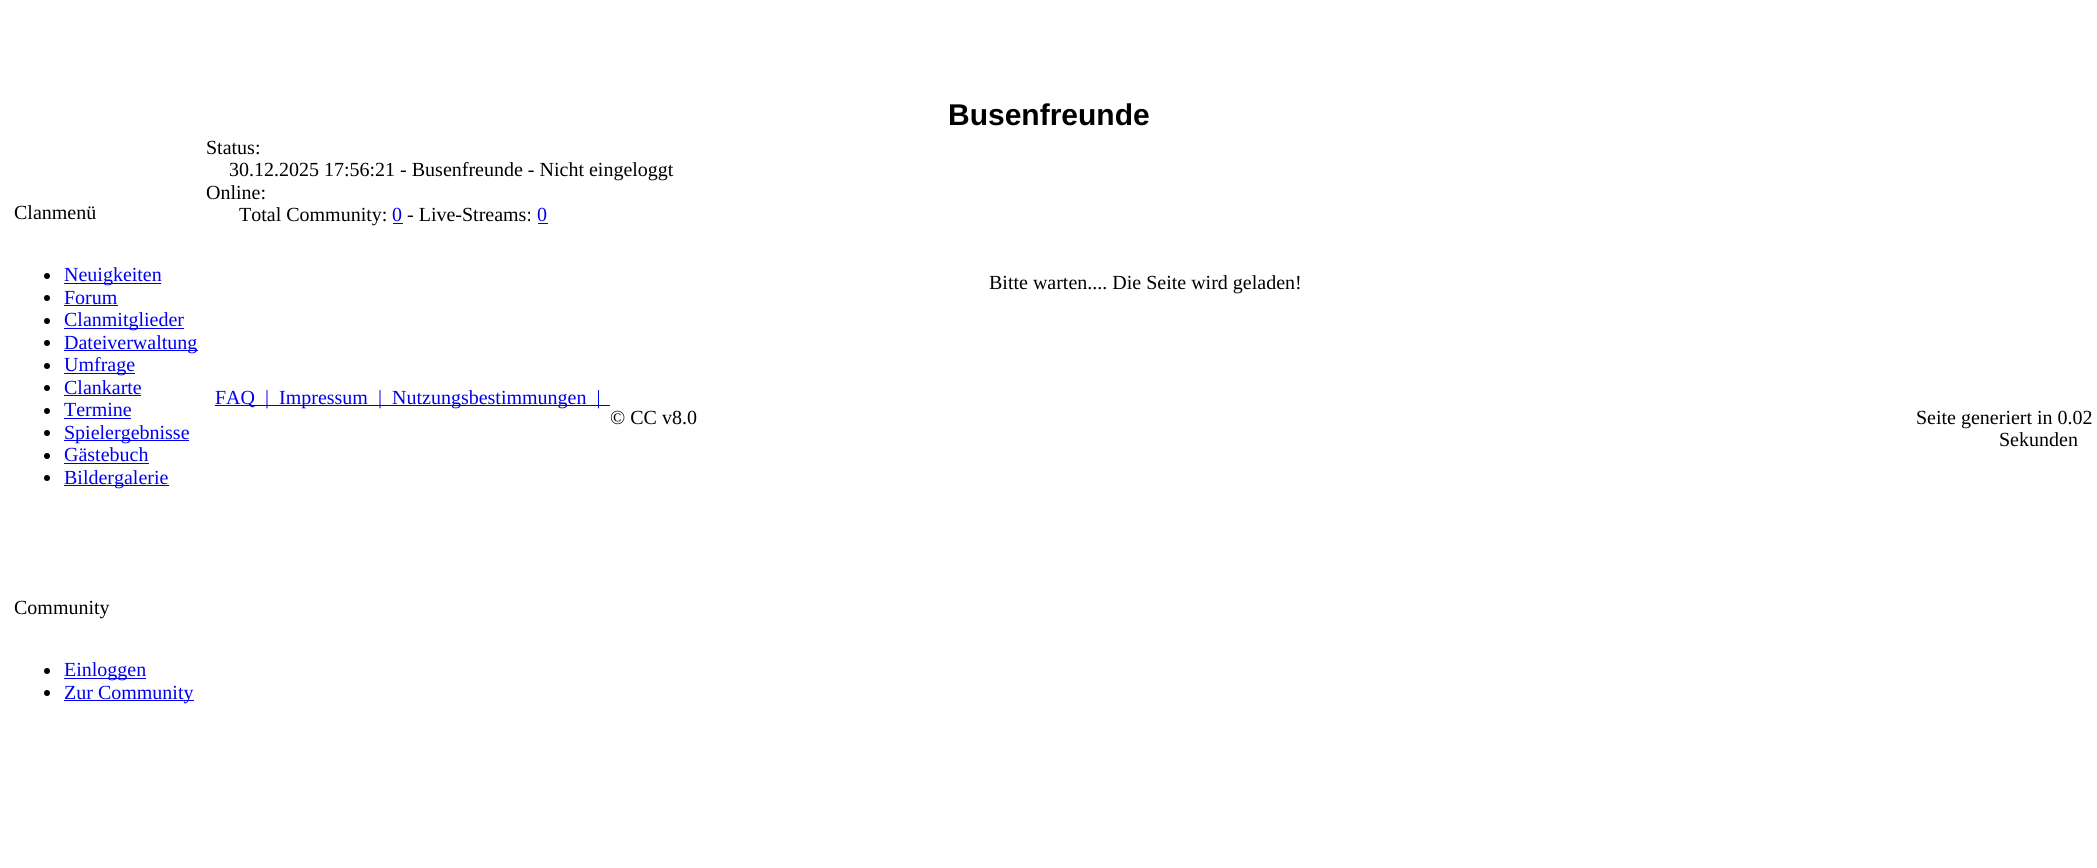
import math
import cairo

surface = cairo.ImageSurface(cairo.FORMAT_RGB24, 2097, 868)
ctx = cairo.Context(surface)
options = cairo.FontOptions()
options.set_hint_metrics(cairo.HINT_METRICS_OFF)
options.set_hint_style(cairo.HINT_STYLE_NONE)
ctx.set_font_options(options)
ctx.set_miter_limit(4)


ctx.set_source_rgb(1, 1, 1)
ctx.paint()
ctx.select_font_face("Liberation Sans", cairo.FONT_SLANT_NORMAL, cairo.FONT_WEIGHT_BOLD)
ctx.set_font_size(30)
ctx.set_source_rgb(0, 0, 0)
ctx.move_to(948, 125)
ctx.show_text("Busenfreunde")
ctx.select_font_face("Liberation Serif")
ctx.set_font_size(20)
ctx.move_to(14, 219)
ctx.show_text("Clanmenü")
ctx.new_path()
ctx.arc(47, 276, 3, 0, 2 * math.pi)
ctx.fill()
ctx.set_source_rgb(0, 0, 0.933)
ctx.rectangle(64, 283, 97, 1)
ctx.fill()
ctx.move_to(64, 281)
ctx.show_text("Neuigkeiten")
ctx.set_source_rgb(0, 0, 0)
ctx.new_path()
ctx.arc(47, 298, 3, 0, 2 * math.pi)
ctx.fill()
ctx.set_source_rgb(0, 0, 0.933)
ctx.move_to(64, 304)
ctx.show_text("Forum")
ctx.rectangle(64, 305, 54, 1)
ctx.fill()
ctx.set_source_rgb(0, 0, 0)
ctx.arc(47, 321, 3, 0, 2 * math.pi)
ctx.fill()
ctx.set_source_rgb(0, 0, 0.933)
ctx.rectangle(64, 328, 120, 1)
ctx.fill()
ctx.move_to(64, 326)
ctx.show_text("Clanmitglieder")
ctx.set_source_rgb(0, 0, 0)
ctx.new_path()
ctx.arc(47, 343, 3, 0, 2 * math.pi)
ctx.fill()
ctx.set_source_rgb(0, 0, 0.933)
ctx.rectangle(64, 350, 134, 1)
ctx.fill()
ctx.move_to(64, 349)
ctx.show_text("Dateiverwaltung")
ctx.set_source_rgb(0, 0, 0)
ctx.new_path()
ctx.arc(47, 366, 3, 0, 2 * math.pi)
ctx.fill()
ctx.set_source_rgb(0, 0, 0.933)
ctx.rectangle(64, 373, 71, 1)
ctx.fill()
ctx.move_to(64, 371)
ctx.show_text("Umfrage")
ctx.set_source_rgb(0, 0, 0)
ctx.new_path()
ctx.arc(47, 388, 3, 0, 2 * math.pi)
ctx.fill()
ctx.set_source_rgb(0, 0, 0.933)
ctx.move_to(64, 394)
ctx.show_text("Clankarte")
ctx.rectangle(64, 395, 77, 1)
ctx.fill()
ctx.set_source_rgb(0, 0, 0)
ctx.arc(47, 411, 3, 0, 2 * math.pi)
ctx.fill()
ctx.set_source_rgb(0, 0, 0.933)
ctx.move_to(64, 416)
ctx.show_text("Termine")
ctx.rectangle(64, 418, 67, 1)
ctx.fill()
ctx.set_source_rgb(0, 0, 0)
ctx.arc(47, 433, 3, 0, 2 * math.pi)
ctx.fill()
ctx.set_source_rgb(0, 0, 0.933)
ctx.rectangle(64, 440, 125, 1)
ctx.fill()
ctx.move_to(64, 439)
ctx.show_text("Spielergebnisse")
ctx.set_source_rgb(0, 0, 0)
ctx.new_path()
ctx.arc(47, 456, 3, 0, 2 * math.pi)
ctx.fill()
ctx.set_source_rgb(0, 0, 0.933)
ctx.move_to(64, 461)
ctx.show_text("Gästebuch")
ctx.rectangle(64, 463, 85, 1)
ctx.fill()
ctx.set_source_rgb(0, 0, 0)
ctx.arc(47, 478, 3, 0, 2 * math.pi)
ctx.fill()
ctx.set_source_rgb(0, 0, 0.933)
ctx.rectangle(64, 485, 105, 1)
ctx.fill()
ctx.move_to(64, 484)
ctx.show_text("Bildergalerie")
ctx.set_source_rgb(0, 0, 0)
ctx.move_to(14, 614)
ctx.show_text("Community")
ctx.new_path()
ctx.arc(47, 671, 3, 0, 2 * math.pi)
ctx.fill()
ctx.set_source_rgb(0, 0, 0.933)
ctx.rectangle(64, 678, 82, 1)
ctx.fill()
ctx.move_to(64, 676)
ctx.show_text("Einloggen")
ctx.set_source_rgb(0, 0, 0)
ctx.new_path()
ctx.arc(47, 693, 3, 0, 2 * math.pi)
ctx.fill()
ctx.set_source_rgb(0, 0, 0.933)
ctx.rectangle(64, 700, 130, 1)
ctx.fill()
ctx.move_to(64, 699)
ctx.show_text("Zur Community")
ctx.set_source_rgb(0, 0, 0)
ctx.move_to(206, 154)
ctx.show_text("Status:")
ctx.move_to(229, 176)
ctx.show_text("30.12.2025 17:56:21 - Busenfreunde - Nicht eingeloggt")
ctx.move_to(206, 199)
ctx.show_text("Online:")
ctx.move_to(239, 221)
ctx.show_text("Total Community:")
ctx.set_source_rgb(0, 0, 0.933)
ctx.move_to(392, 221)
ctx.show_text("0")
ctx.rectangle(393, 223, 10, 1)
ctx.fill()
ctx.set_source_rgb(0, 0, 0)
ctx.move_to(407, 221)
ctx.show_text("- Live-Streams:")
ctx.set_source_rgb(0, 0, 0.933)
ctx.move_to(537, 221)
ctx.show_text("0")
ctx.rectangle(538, 223, 10, 1)
ctx.fill()
ctx.set_source_rgb(0, 0, 0)
ctx.move_to(989, 289)
ctx.show_text("Bitte warten.... Die Seite wird geladen!")
ctx.set_source_rgb(0, 0, 0.933)
ctx.rectangle(215, 405, 395, 1)
ctx.fill()
ctx.move_to(215, 404)
ctx.show_text("FAQ  |")
ctx.move_to(279, 404)
ctx.show_text("Impressum  |")
ctx.move_to(392, 404)
ctx.show_text("Nutzungsbestimmungen  |")
ctx.set_source_rgb(0, 0, 0)
ctx.move_to(610, 424)
ctx.show_text("© CC v8.0")
ctx.move_to(1916, 424)
ctx.show_text("Seite generiert in 0.02")
ctx.move_to(1999, 446)
ctx.show_text("Sekunden")
surface.write_to_png("page.png")
